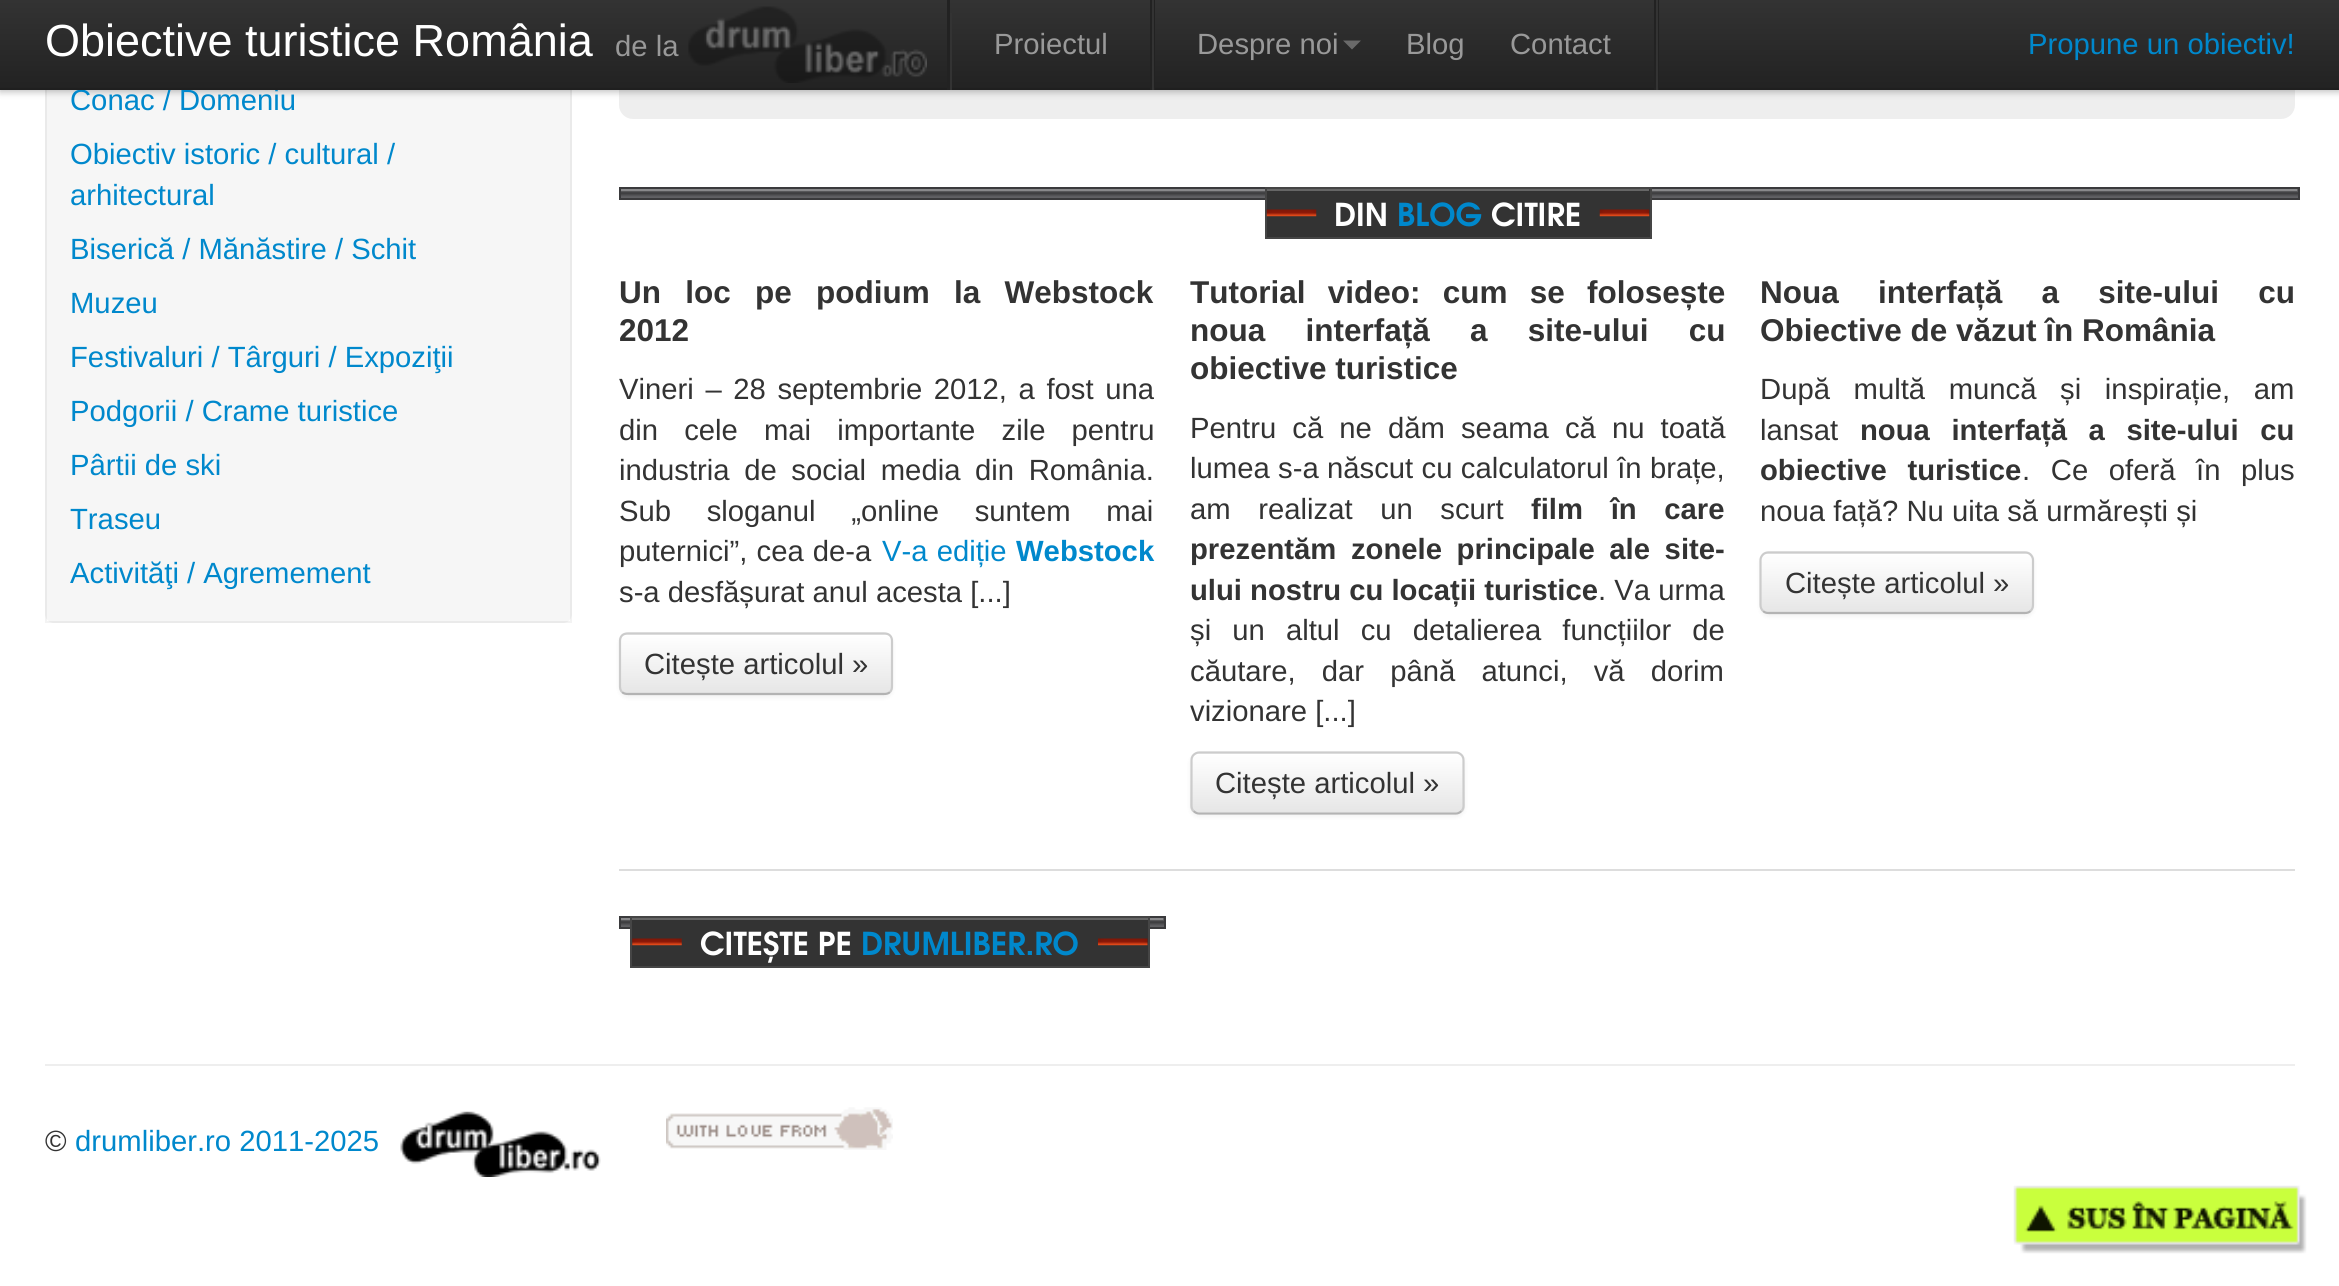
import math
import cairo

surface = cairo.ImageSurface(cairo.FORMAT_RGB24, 2339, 1286)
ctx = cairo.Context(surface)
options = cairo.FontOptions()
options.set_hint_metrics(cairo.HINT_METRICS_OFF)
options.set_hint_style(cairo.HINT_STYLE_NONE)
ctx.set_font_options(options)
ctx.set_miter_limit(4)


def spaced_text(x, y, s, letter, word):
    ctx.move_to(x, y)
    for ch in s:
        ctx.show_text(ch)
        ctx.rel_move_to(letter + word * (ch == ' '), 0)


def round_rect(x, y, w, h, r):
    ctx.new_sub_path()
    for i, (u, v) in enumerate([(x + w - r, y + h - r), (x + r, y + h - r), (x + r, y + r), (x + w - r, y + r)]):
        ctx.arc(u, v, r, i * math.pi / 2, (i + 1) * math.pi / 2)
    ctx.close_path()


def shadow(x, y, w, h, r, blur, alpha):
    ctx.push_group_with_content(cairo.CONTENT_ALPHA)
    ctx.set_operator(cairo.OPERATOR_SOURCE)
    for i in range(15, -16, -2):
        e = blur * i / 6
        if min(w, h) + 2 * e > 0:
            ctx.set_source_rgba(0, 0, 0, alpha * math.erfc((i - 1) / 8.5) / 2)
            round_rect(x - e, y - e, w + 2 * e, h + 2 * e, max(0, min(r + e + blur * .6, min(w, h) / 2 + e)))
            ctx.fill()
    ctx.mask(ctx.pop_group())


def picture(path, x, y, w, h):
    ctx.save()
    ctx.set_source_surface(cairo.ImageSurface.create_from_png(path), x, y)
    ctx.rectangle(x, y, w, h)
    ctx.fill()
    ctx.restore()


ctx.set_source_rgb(1, 1, 1)
ctx.paint()
ctx.set_source_rgb(0.961, 0.961, 0.961)
round_rect(45, -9, 527, 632, 9)
ctx.fill()
ctx.rectangle(46, -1, 525, 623)
ctx.set_source_rgba(0, 0, 0, 0.05)
ctx.stroke()
ctx.set_source_rgb(0.933, 0.933, 0.933)
round_rect(619, -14, 1676, 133, 14)
ctx.fill()
ctx.set_source_rgb(0, 0, 0)
shadow(0, 2, 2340, 90, 0, 3.5, 0.25)
gradient = cairo.LinearGradient(1170, 0, 1170, 90)
gradient.add_color_stop_rgba(0, 0.2, 0.2, 0.2, 1)
gradient.add_color_stop_rgba(1, 0.133, 0.133, 0.133, 1)
ctx.set_source(gradient)
ctx.rectangle(0, 0, 2339, 88)
ctx.fill()
ctx.select_font_face("Liberation Sans")
ctx.set_font_size(29.25)
ctx.set_source_rgb(0, 0.533, 0.8)
ctx.move_to(70, 110)
ctx.show_text("Conac / Domeniu")
ctx.set_source_rgb(0.122, 0.122, 0.122)
ctx.rectangle(0, 88, 2339, 2)
ctx.fill()
ctx.set_font_size(45)
ctx.set_source_rgb(1, 1, 1)
ctx.move_to(45, 56)
ctx.show_text("Obiective turistice România")
ctx.set_font_size(29.25)
ctx.set_source_rgb(0.6, 0.6, 0.6)
ctx.move_to(615, 56)
ctx.show_text("de la")
picture("img1.png", 688, 6, 239, 77)
ctx.set_source_rgb(0.133, 0.133, 0.133)
ctx.rectangle(947, 0, 3, 90)
ctx.fill()
ctx.set_source_rgb(0.2, 0.2, 0.2)
ctx.rectangle(950, 13, 2, 77)
ctx.fill()
ctx.set_source_rgb(0.6, 0.6, 0.6)
ctx.move_to(994, 54)
ctx.show_text("Proiectul")
ctx.set_source_rgb(0.133, 0.133, 0.133)
ctx.rectangle(1150, 0, 5, 90)
ctx.fill()
ctx.set_source_rgb(0.2, 0.2, 0.2)
ctx.rectangle(1152, 0, 2, 90)
ctx.fill()
ctx.set_source_rgb(0.6, 0.6, 0.6)
ctx.move_to(1197, 54)
ctx.show_text("Despre noi")
ctx.set_source_rgb(0.416, 0.416, 0.416)
ctx.new_path()
ctx.move_to(1343, 40.5)
ctx.line_to(1361, 40.5)
ctx.line_to(1352, 49.5)
ctx.close_path()
ctx.fill()
ctx.set_source_rgb(0.6, 0.6, 0.6)
ctx.move_to(1406, 54)
ctx.show_text("Blog")
ctx.move_to(1510, 54)
ctx.show_text("Contact")
ctx.set_source_rgb(0.133, 0.133, 0.133)
ctx.rectangle(1654, 0, 5, 90)
ctx.fill()
ctx.set_source_rgb(0.2, 0.2, 0.2)
ctx.rectangle(1656, 0, 2, 90)
ctx.fill()
ctx.set_source_rgb(0, 0.533, 0.8)
ctx.move_to(2028, 54)
ctx.show_text("Propune un obiectiv!")
ctx.move_to(70, 164)
ctx.show_text("Obiectiv istoric / cultural /")
ctx.move_to(70, 205)
ctx.show_text("arhitectural")
ctx.move_to(70, 259)
ctx.show_text("Biserică / Mănăstire / Schit")
ctx.move_to(70, 313)
ctx.show_text("Muzeu")
ctx.move_to(70, 367)
ctx.show_text("Festivaluri / Târguri / Expoziţii")
ctx.move_to(70, 421)
ctx.show_text("Podgorii / Crame turistice")
ctx.move_to(70, 475)
ctx.show_text("Pârtii de ski")
ctx.move_to(70, 529)
ctx.show_text("Traseu")
ctx.move_to(70, 583)
ctx.show_text("Activităţi / Agremement")
gradient = cairo.LinearGradient(621, 198, 621, 189)
gradient.add_color_stop_rgba(0.12, 0.38, 0.38, 0.392, 1)
gradient.add_color_stop_rgba(0.56, 0.227, 0.227, 0.235, 1)
gradient.add_color_stop_rgba(0.78, 0.38, 0.38, 0.392, 1)
ctx.set_source(gradient)
ctx.rectangle(621, 189, 1677, 9)
ctx.fill()
ctx.set_source_rgb(0.537, 0.537, 0.545)
ctx.rectangle(621, 189, 1676, 2)
ctx.fill()
ctx.rectangle(620, 188, 1679, 11)
ctx.set_source_rgb(0.227, 0.227, 0.235)
ctx.stroke()
ctx.set_source_rgb(0.2, 0.2, 0.2)
ctx.rectangle(1267, 189, 383, 48)
ctx.fill()
ctx.set_source_rgb(0.4, 0.4, 0.4)
ctx.rectangle(1267, 189, 382, 2)
ctx.fill()
ctx.rectangle(1266, 188, 385, 50)
ctx.set_source_rgb(0.271, 0.271, 0.271)
ctx.stroke()
ctx.select_font_face("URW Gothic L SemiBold")
ctx.set_font_size(31.5)
ctx.set_source_rgb(1, 1, 1)
ctx.move_to(1334, 226)
ctx.show_text("DIN")
ctx.set_source_rgb(0, 0.533, 0.8)
ctx.move_to(1397, 226)
ctx.show_text("BLOG")
ctx.set_source_rgb(1, 1, 1)
ctx.move_to(1491, 226)
ctx.show_text("CITIRE")
picture("img2.png", 1266, 209, 384, 8)
ctx.set_source_rgb(0.867, 0.867, 0.867)
ctx.rectangle(619, 869, 1676, 2)
ctx.fill()
ctx.select_font_face("Liberation Sans", cairo.FONT_SLANT_NORMAL, cairo.FONT_WEIGHT_BOLD)
ctx.set_source_rgb(0.2, 0.2, 0.2)
spaced_text(619, 303, "Un loc pe podium la Webstock", 0, 15.5)
ctx.move_to(619, 341)
ctx.show_text("2012")
ctx.select_font_face("Liberation Sans")
ctx.set_font_size(29.25)
spaced_text(619, 399, "Vineri – 28 septembrie 2012, a fost una", 0, 3.5)
spaced_text(619, 440, "din cele mai importante zile pentru", 0, 18)
spaced_text(619, 480, "industria de social media din România.", 0, 6.5)
spaced_text(619, 521, "Sub sloganul „online suntem mai", 0, 27.5)
spaced_text(619, 561, "puternici”, cea de-a", 0, 1)
ctx.set_source_rgb(0, 0.533, 0.8)
spaced_text(882, 561, "V-a ediție", 0, 1)
ctx.select_font_face("Liberation Sans", cairo.FONT_SLANT_NORMAL, cairo.FONT_WEIGHT_BOLD)
ctx.move_to(1016, 561)
ctx.show_text("Webstock")
ctx.select_font_face("Liberation Sans")
ctx.set_source_rgb(0.2, 0.2, 0.2)
ctx.move_to(619, 602)
ctx.show_text("s-a desfășurat anul acesta [...]")
ctx.set_source_rgb(0, 0, 0)
shadow(619, 635, 274, 63, 9, 2, 0.05)
ctx.set_source_rgb(0.961, 0.961, 0.961)
round_rect(619, 632, 274, 63, 9)
ctx.fill()
ctx.save()
round_rect(619, 632, 274, 63, 9)
ctx.clip()
gradient = cairo.LinearGradient(756, 635, 756, 693)
gradient.add_color_stop_rgba(0, 1, 1, 1, 1)
gradient.add_color_stop_rgba(1, 0.902, 0.902, 0.902, 1)
ctx.set_source(gradient)
ctx.rectangle(619, 635, 274, 58)
ctx.fill()
ctx.restore()
ctx.new_path()
ctx.move_to(890, 692)
ctx.curve_to(888.5, 693.5, 886.5, 694, 884, 694)
ctx.line_to(628, 694)
ctx.curve_to(625.5, 694, 623.5, 693.5, 622, 692)
ctx.set_source_rgb(0.702, 0.702, 0.702)
ctx.set_line_width(2.2)
ctx.stroke()
ctx.new_path()
ctx.move_to(622, 692)
ctx.curve_to(620.5, 690.5, 620, 688.5, 620, 686)
ctx.line_to(620, 641)
ctx.curve_to(620, 639, 620.5, 637, 622, 635.5)
ctx.curve_to(623.5, 634, 625.5, 633.5, 628, 633.5)
ctx.line_to(884, 633.5)
ctx.curve_to(886.5, 633.5, 888.5, 634, 890, 635.5)
ctx.curve_to(891.5, 637, 892, 639, 892, 641)
ctx.line_to(892, 686)
ctx.curve_to(892, 688.5, 891.5, 690.5, 890, 692)
ctx.set_source_rgb(0.8, 0.8, 0.8)
ctx.stroke()
ctx.set_source_rgb(0.2, 0.2, 0.2)
ctx.move_to(644, 674)
ctx.show_text("Citește articolul »")
ctx.select_font_face("Liberation Sans", cairo.FONT_SLANT_NORMAL, cairo.FONT_WEIGHT_BOLD)
ctx.set_font_size(31.5)
spaced_text(1190, 303, "Tutorial video: cum se folosește", 0, 13.5)
spaced_text(1190, 341, "noua interfață a site-ului cu", 0, 31.5)
ctx.move_to(1190, 379)
ctx.show_text("obiective turistice")
ctx.select_font_face("Liberation Sans")
ctx.set_font_size(29.25)
spaced_text(1190, 438, "Pentru că ne dăm seama că nu toată", 0, 8)
spaced_text(1190, 478, "lumea s-a născut cu calculatorul în brațe,", 0, 0.25)
spaced_text(1190, 519, "am realizat un scurt", 0, 19.5)
ctx.select_font_face("Liberation Sans", cairo.FONT_SLANT_NORMAL, cairo.FONT_WEIGHT_BOLD)
spaced_text(1531, 519, "film în care", 0, 19.5)
spaced_text(1190, 559, "prezentăm zonele principale ale site-", 0, 6.5)
ctx.move_to(1190, 600)
ctx.show_text("ului nostru cu locații turistice")
ctx.select_font_face("Liberation Sans")
ctx.move_to(1598, 600)
ctx.show_text(". Va urma")
spaced_text(1190, 640, "și un altul cu detalierea funcțiilor de", 0, 13)
spaced_text(1190, 681, "căutare, dar până atunci, vă dorim", 0, 18)
ctx.move_to(1190, 721)
ctx.show_text("vizionare [...]")
ctx.set_source_rgb(0, 0, 0)
shadow(1190, 754, 275, 63, 9, 2, 0.05)
ctx.set_source_rgb(0.961, 0.961, 0.961)
round_rect(1190, 752, 275, 63, 9)
ctx.fill()
ctx.save()
round_rect(1190, 752, 275, 63, 9)
ctx.clip()
gradient = cairo.LinearGradient(1328, 754, 1328, 812)
gradient.add_color_stop_rgba(0, 1, 1, 1, 1)
gradient.add_color_stop_rgba(1, 0.902, 0.902, 0.902, 1)
ctx.set_source(gradient)
ctx.rectangle(1190, 754, 275, 58)
ctx.fill()
ctx.restore()
ctx.set_source_rgba(1, 1, 1, 0.2)
ctx.new_path()
ctx.move_to(1199, 756)
ctx.line_to(1456, 756)
ctx.curve_to(1459, 756, 1462, 759, 1462, 763)
ctx.line_to(1462, 809)
ctx.curve_to(1463, 808, 1463, 806, 1463, 805)
ctx.line_to(1463, 761)
ctx.curve_to(1463, 757, 1460, 754, 1456, 754)
ctx.line_to(1200, 754)
ctx.curve_to(1197, 754, 1194, 756, 1193, 759)
ctx.curve_to(1195, 757, 1197, 756, 1199, 756)
ctx.close_path()
ctx.fill()
ctx.new_path()
ctx.move_to(1461.5, 811)
ctx.curve_to(1460, 812.5, 1458, 813.5, 1456, 813.5)
ctx.line_to(1199, 813.5)
ctx.curve_to(1197, 813.5, 1195, 812.5, 1193.5, 811)
ctx.set_source_rgb(0.702, 0.702, 0.702)
ctx.stroke()
ctx.new_path()
ctx.move_to(1193.5, 811)
ctx.curve_to(1192, 809.5, 1191.5, 807.5, 1191.5, 805.5)
ctx.line_to(1191.5, 760.5)
ctx.curve_to(1191.5, 758.5, 1192, 756.5, 1193.5, 755)
ctx.curve_to(1195, 753.5, 1197, 752.5, 1199, 752.5)
ctx.line_to(1456, 752.5)
ctx.curve_to(1458, 752.5, 1460, 753.5, 1461.5, 755)
ctx.curve_to(1463, 756.5, 1463.5, 758.5, 1463.5, 760.5)
ctx.line_to(1463.5, 805.5)
ctx.curve_to(1463.5, 807.5, 1463, 809.5, 1461.5, 811)
ctx.set_source_rgb(0.8, 0.8, 0.8)
ctx.stroke()
ctx.set_source_rgb(0.2, 0.2, 0.2)
ctx.move_to(1215, 793)
ctx.show_text("Citește articolul »")
ctx.select_font_face("Liberation Sans", cairo.FONT_SLANT_NORMAL, cairo.FONT_WEIGHT_BOLD)
ctx.set_font_size(31.5)
spaced_text(1760, 303, "Noua interfață a site-ului cu", 0, 30.5)
ctx.move_to(1760, 341)
ctx.show_text("Obiective de văzut în România")
ctx.select_font_face("Liberation Sans")
ctx.set_font_size(29.25)
spaced_text(1760, 399, "După multă muncă și inspirație, am", 0, 15.5)
ctx.move_to(1760, 440)
ctx.show_text("lansat")
ctx.select_font_face("Liberation Sans", cairo.FONT_SLANT_NORMAL, cairo.FONT_WEIGHT_BOLD)
spaced_text(1860, 440, "noua interfață a site-ului cu", 0, 13.5)
spaced_text(1760, 480, "obiective turistice", 0, 12.5)
ctx.select_font_face("Liberation Sans")
spaced_text(2022, 480, ". Ce oferă în plus", 0, 12.5)
ctx.move_to(1760, 521)
ctx.show_text("noua față? Nu uita să urmărești și")
ctx.set_source_rgb(0, 0, 0)
shadow(1760, 554, 274, 63, 9, 2, 0.05)
ctx.set_source_rgb(0.961, 0.961, 0.961)
round_rect(1760, 551, 274, 63, 9)
ctx.fill()
ctx.save()
round_rect(1760, 551, 274, 63, 9)
ctx.clip()
gradient = cairo.LinearGradient(1897, 554, 1897, 612)
gradient.add_color_stop_rgba(0, 1, 1, 1, 1)
gradient.add_color_stop_rgba(1, 0.902, 0.902, 0.902, 1)
ctx.set_source(gradient)
ctx.rectangle(1760, 554, 274, 58)
ctx.fill()
ctx.restore()
ctx.new_path()
ctx.move_to(2030.5, 611)
ctx.curve_to(2029, 612.5, 2027, 613, 2025, 613)
ctx.line_to(1768.5, 613)
ctx.curve_to(1766.5, 613, 1764.5, 612.5, 1763, 611)
ctx.set_source_rgb(0.702, 0.702, 0.702)
ctx.stroke()
ctx.new_path()
ctx.move_to(1763, 611)
ctx.curve_to(1761.5, 609.5, 1760.5, 607.5, 1760.5, 605)
ctx.line_to(1760.5, 560)
ctx.curve_to(1760.5, 558, 1761.5, 556, 1763, 554.5)
ctx.curve_to(1764.5, 553, 1766.5, 552.5, 1768.5, 552.5)
ctx.line_to(2025, 552.5)
ctx.curve_to(2027, 552.5, 2029, 553, 2030.5, 554.5)
ctx.curve_to(2032, 556, 2033, 558, 2033, 560)
ctx.line_to(2033, 605)
ctx.curve_to(2033, 607.5, 2032, 609.5, 2030.5, 611)
ctx.set_source_rgb(0.8, 0.8, 0.8)
ctx.stroke()
ctx.set_source_rgb(0.2, 0.2, 0.2)
ctx.move_to(1785, 593)
ctx.show_text("Citește articolul »")
gradient = cairo.LinearGradient(621, 927, 621, 918)
gradient.add_color_stop_rgba(0.12, 0.38, 0.38, 0.392, 1)
gradient.add_color_stop_rgba(0.56, 0.227, 0.227, 0.235, 1)
gradient.add_color_stop_rgba(0.78, 0.38, 0.38, 0.392, 1)
ctx.set_source(gradient)
ctx.rectangle(621, 918, 543, 9)
ctx.fill()
ctx.set_source_rgb(0.537, 0.537, 0.545)
ctx.rectangle(621, 918, 542, 2)
ctx.fill()
ctx.rectangle(620, 917, 545, 11)
ctx.set_source_rgb(0.227, 0.227, 0.235)
ctx.set_line_width(2)
ctx.stroke()
ctx.set_source_rgb(0.2, 0.2, 0.2)
ctx.rectangle(632, 920, 516, 46)
ctx.fill()
ctx.set_source_rgb(0.4, 0.4, 0.4)
ctx.rectangle(632, 918, 516, 2)
ctx.fill()
ctx.rectangle(631, 917, 518, 50)
ctx.set_source_rgb(0.271, 0.271, 0.271)
ctx.stroke()
ctx.select_font_face("URW Gothic L SemiBold")
ctx.set_font_size(31.5)
ctx.set_source_rgb(1, 1, 1)
ctx.move_to(700, 955)
ctx.show_text("CITEȘTE PE")
ctx.set_source_rgb(0, 0.533, 0.8)
ctx.move_to(861, 955)
ctx.show_text("DRUMLIBER.RO")
picture("img3.png", 632, 938, 516, 8)
ctx.set_source_rgb(0.933, 0.933, 0.933)
ctx.rectangle(45, 1064, 2250, 2)
ctx.fill()
ctx.select_font_face("Liberation Sans")
ctx.set_font_size(29.25)
ctx.set_source_rgb(0.2, 0.2, 0.2)
ctx.move_to(45, 1151)
ctx.show_text("©")
ctx.set_source_rgb(0, 0.533, 0.8)
ctx.move_to(75, 1151)
ctx.show_text("drumliber.ro 2011-2025")
picture("img4.png", 400, 1111, 201, 66)
picture("img5.png", 666, 1107, 227, 43)
picture("img6.png", 2013, 1185, 294, 69)
surface.write_to_png("page.png")
